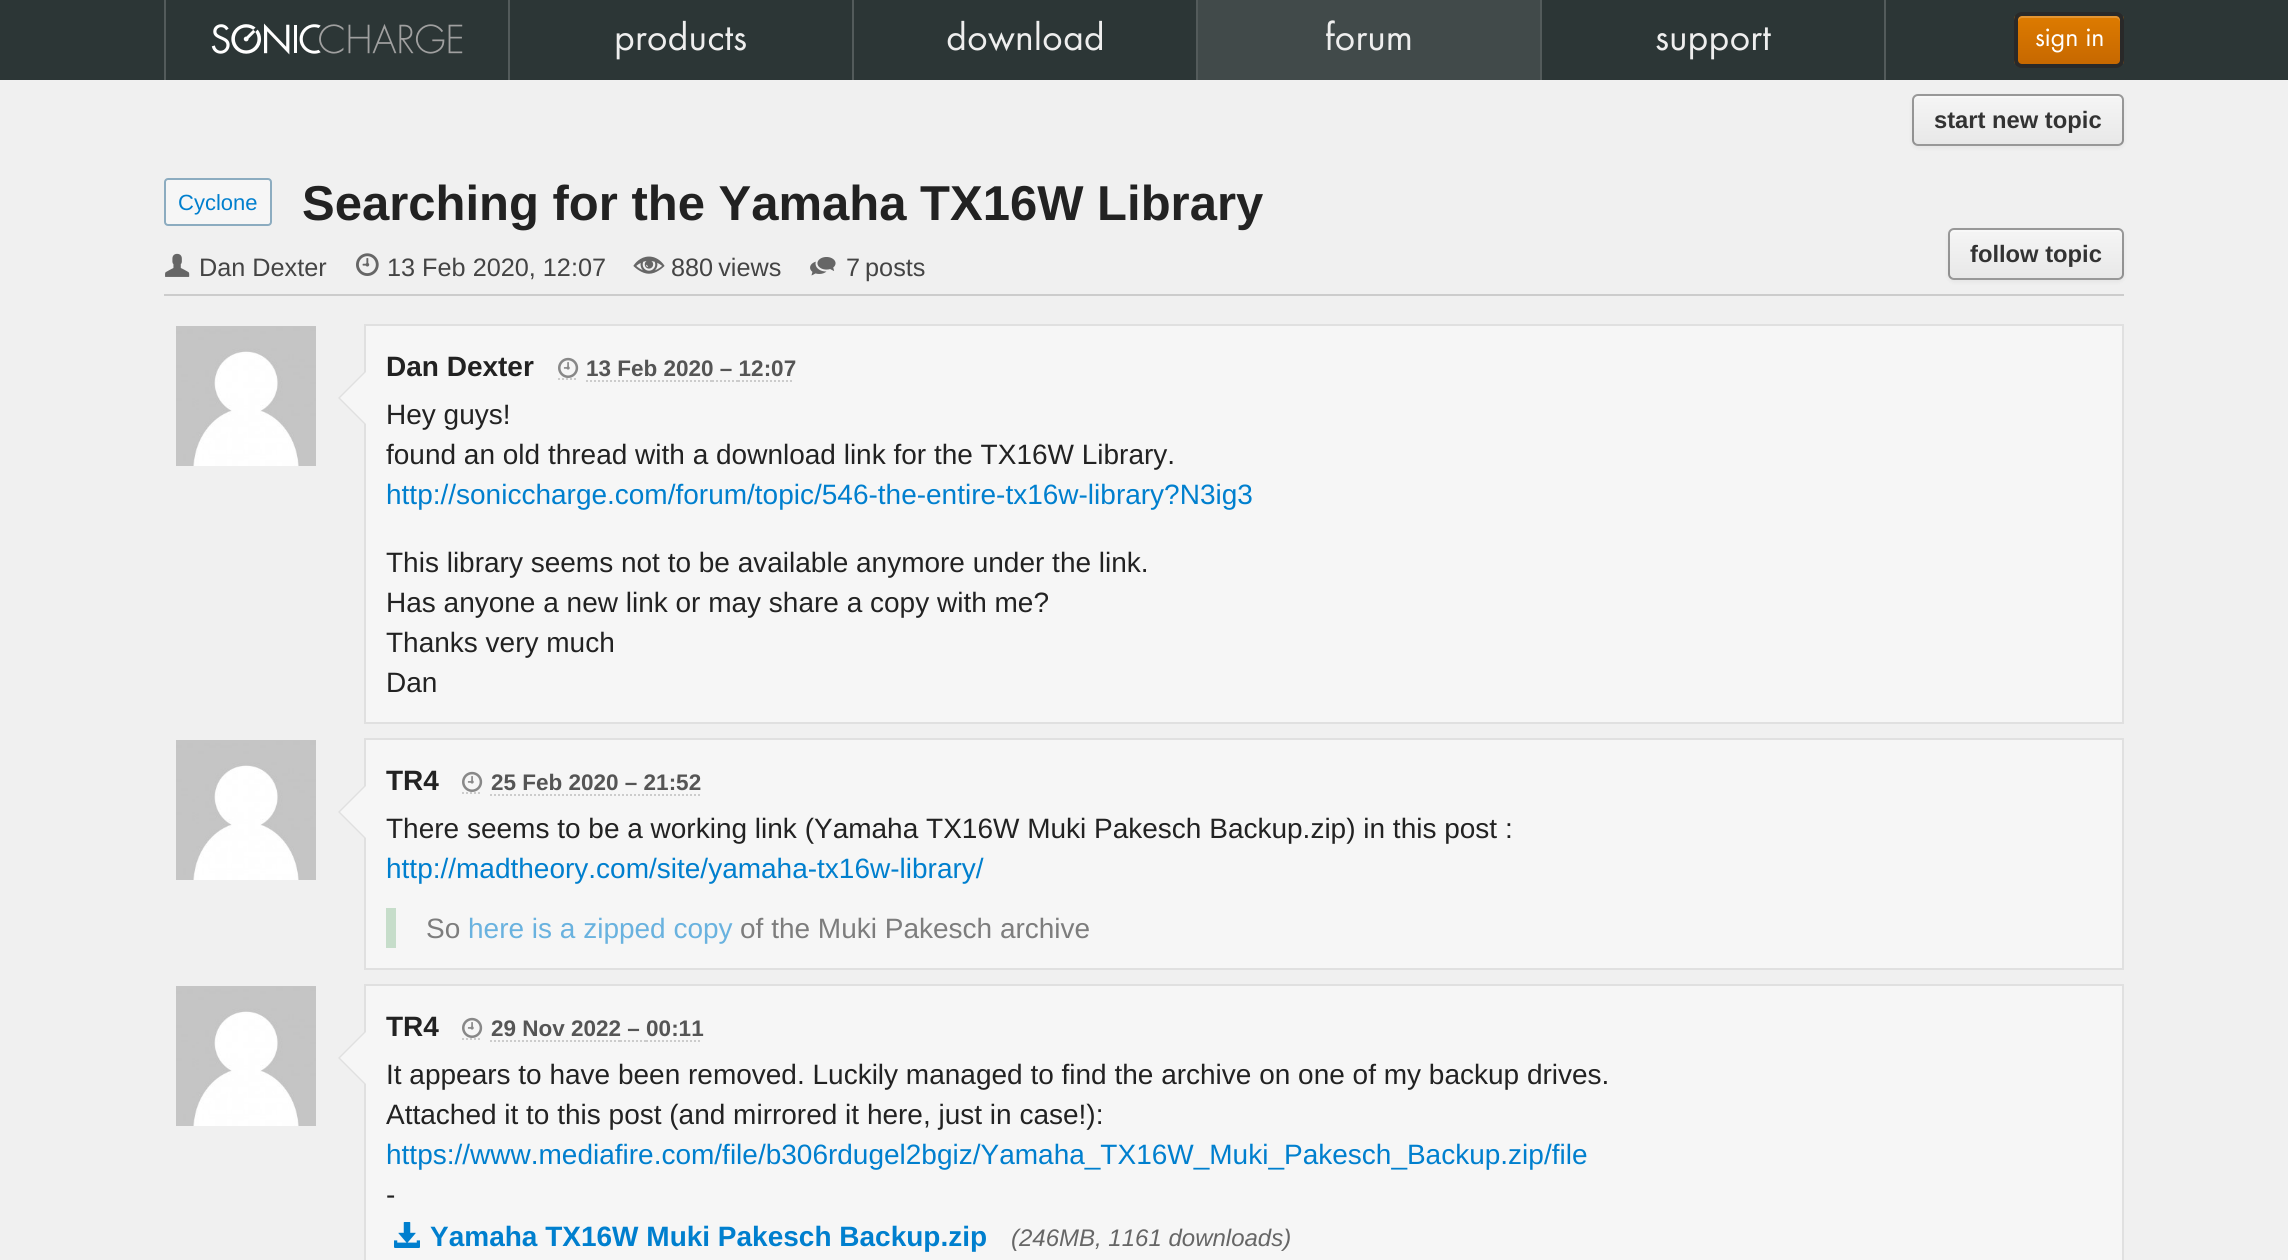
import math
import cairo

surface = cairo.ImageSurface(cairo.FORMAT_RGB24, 2288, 1260)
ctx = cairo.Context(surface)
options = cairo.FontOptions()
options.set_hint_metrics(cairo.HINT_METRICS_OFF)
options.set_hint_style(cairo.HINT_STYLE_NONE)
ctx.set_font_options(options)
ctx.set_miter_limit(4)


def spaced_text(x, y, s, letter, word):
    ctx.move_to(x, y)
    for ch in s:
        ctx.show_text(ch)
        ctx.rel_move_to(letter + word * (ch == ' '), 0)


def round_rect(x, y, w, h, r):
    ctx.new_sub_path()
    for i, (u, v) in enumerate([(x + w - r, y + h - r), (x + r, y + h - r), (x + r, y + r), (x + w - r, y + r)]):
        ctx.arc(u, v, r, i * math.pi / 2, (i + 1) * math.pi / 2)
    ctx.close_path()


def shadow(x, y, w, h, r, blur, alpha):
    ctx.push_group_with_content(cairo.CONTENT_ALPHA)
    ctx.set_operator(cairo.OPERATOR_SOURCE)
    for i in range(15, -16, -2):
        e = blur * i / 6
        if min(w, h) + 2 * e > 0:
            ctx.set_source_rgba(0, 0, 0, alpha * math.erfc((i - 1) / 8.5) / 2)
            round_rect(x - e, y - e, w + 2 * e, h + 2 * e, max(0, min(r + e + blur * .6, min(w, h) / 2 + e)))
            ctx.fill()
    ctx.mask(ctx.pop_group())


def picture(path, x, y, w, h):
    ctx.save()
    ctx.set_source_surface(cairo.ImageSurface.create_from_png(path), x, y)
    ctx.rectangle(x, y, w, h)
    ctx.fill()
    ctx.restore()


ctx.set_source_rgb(0.941, 0.941, 0.941)
ctx.paint()
ctx.set_source_rgb(0.173, 0.212, 0.212)
ctx.rectangle(0, 0, 2288, 80)
ctx.fill()
picture("img1.png", 211, 23, 252, 32)
ctx.set_source_rgb(0.325, 0.357, 0.357)
ctx.rectangle(164, 0, 2, 80)
ctx.fill()
ctx.rectangle(508, 0, 2, 80)
ctx.fill()
ctx.select_font_face("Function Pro")
ctx.set_font_size(40)
ctx.set_source_rgb(0.933, 0.933, 0.933)
ctx.move_to(614, 50)
ctx.show_text("products")
ctx.set_source_rgb(0.325, 0.357, 0.357)
ctx.rectangle(852, 0, 2, 80)
ctx.fill()
ctx.set_source_rgb(0.933, 0.933, 0.933)
ctx.move_to(946, 50)
ctx.show_text("download")
ctx.set_source_rgb(0.325, 0.357, 0.357)
ctx.rectangle(1196, 0, 2, 80)
ctx.fill()
ctx.set_source_rgb(0.255, 0.29, 0.29)
ctx.rectangle(1198, 0, 342, 80)
ctx.fill()
ctx.set_source_rgb(0.933, 0.933, 0.933)
ctx.move_to(1325, 50)
ctx.show_text("forum")
ctx.set_source_rgb(0.325, 0.357, 0.357)
ctx.rectangle(1540, 0, 2, 80)
ctx.fill()
ctx.set_source_rgb(0.933, 0.933, 0.933)
ctx.move_to(1655, 50)
ctx.show_text("support")
ctx.set_source_rgb(0.325, 0.357, 0.357)
ctx.rectangle(1884, 0, 2, 80)
ctx.fill()
ctx.save()
round_rect(2014, 12, 110, 56, 8)
ctx.clip()
gradient = cairo.LinearGradient(2069, 16, 2069, 64)
gradient.add_color_stop_rgba(0, 0.867, 0.482, 0, 1)
gradient.add_color_stop_rgba(1, 0.78, 0.408, 0, 1)
ctx.set_source(gradient)
ctx.rectangle(2014, 16, 110, 48)
ctx.fill()
ctx.restore()
ctx.set_source_rgb(0.89, 0.584, 0.2)
ctx.new_path()
ctx.move_to(2022, 18)
ctx.line_to(2116, 18)
ctx.curve_to(2118, 18, 2120, 20, 2120, 22)
ctx.line_to(2120, 20)
ctx.curve_to(2120, 18, 2118, 16, 2116, 16)
ctx.line_to(2022, 16)
ctx.curve_to(2020, 16, 2018, 18, 2018, 20)
ctx.line_to(2018, 22)
ctx.curve_to(2018, 20, 2020, 18, 2022, 18)
ctx.close_path()
ctx.fill()
round_rect(2016, 14, 106, 52, 6)
ctx.set_source_rgb(0.161, 0.161, 0.161)
ctx.set_line_width(4)
ctx.stroke()
ctx.set_font_size(28)
ctx.set_source_rgb(1, 1, 1)
ctx.move_to(2035, 46)
ctx.show_text("sign in")
ctx.set_source_rgb(0, 0, 0)
shadow(1912, 96, 212, 52, 6, 2, 0.05)
ctx.set_source_rgb(0.961, 0.961, 0.961)
round_rect(1912, 94, 212, 52, 6)
ctx.fill()
ctx.save()
round_rect(1912, 94, 212, 52, 6)
ctx.clip()
gradient = cairo.LinearGradient(2018, 96, 2018, 144)
gradient.add_color_stop_rgba(0, 0.961, 0.961, 0.961, 1)
gradient.add_color_stop_rgba(1, 0.91, 0.91, 0.91, 1)
ctx.set_source(gradient)
ctx.rectangle(1912, 96, 212, 48)
ctx.fill()
ctx.restore()
ctx.set_source_rgb(0.969, 0.969, 0.969)
ctx.new_path()
ctx.move_to(1918, 98)
ctx.line_to(2118, 98)
ctx.curve_to(2120, 98, 2122, 100, 2122, 102)
ctx.curve_to(2122, 99, 2122, 97, 2119, 96)
ctx.line_to(1918, 96)
ctx.curve_to(1914, 96, 1914, 99, 1914, 102)
ctx.curve_to(1914, 100, 1916, 98, 1918, 98)
ctx.close_path()
ctx.fill()
round_rect(1913, 95, 210, 50, 5)
ctx.set_source_rgba(0, 0, 0, 0.38)
ctx.set_line_width(2)
ctx.stroke()
ctx.select_font_face("Liberation Sans", cairo.FONT_SLANT_NORMAL, cairo.FONT_WEIGHT_BOLD)
ctx.set_font_size(23.75)
ctx.set_source_rgb(0.2, 0.2, 0.2)
ctx.move_to(1934, 128)
ctx.show_text("start new topic")
ctx.set_source_rgb(0.8, 0.8, 0.8)
ctx.rectangle(164, 294, 1960, 2)
ctx.fill()
ctx.set_source_rgb(0.961, 0.961, 0.961)
round_rect(165, 179, 106, 46, 3)
ctx.fill_preserve()
ctx.set_source_rgb(0.549, 0.675, 0.753)
ctx.stroke()
ctx.select_font_face("Liberation Sans")
ctx.set_font_size(22)
ctx.set_source_rgb(0, 0.498, 0.808)
ctx.move_to(178, 210)
ctx.show_text("Cyclone")
ctx.select_font_face("Liberation Sans", cairo.FONT_SLANT_NORMAL, cairo.FONT_WEIGHT_BOLD)
ctx.set_font_size(49)
ctx.set_source_rgb(0.133, 0.133, 0.133)
ctx.move_to(302, 220)
ctx.show_text("Searching for the Yamaha TX16W Library")
picture("img2.png", 165, 253, 25, 24)
ctx.select_font_face("Liberation Sans")
ctx.set_font_size(25.25)
ctx.set_source_rgb(0.267, 0.267, 0.267)
ctx.move_to(199, 276)
ctx.show_text("Dan Dexter")
picture("img3.png", 356, 253, 23, 23)
ctx.move_to(387, 276)
ctx.show_text("13 Feb 2020, 12:07")
picture("img4.png", 633, 256, 32, 18)
spaced_text(671, 276, "880 views", 0, -2)
picture("img5.png", 810, 257, 26, 19)
spaced_text(846, 276, "7 posts", 0, -2)
ctx.set_source_rgb(0, 0, 0)
shadow(1948, 230, 176, 52, 6, 2, 0.05)
ctx.set_source_rgb(0.961, 0.961, 0.961)
round_rect(1948, 228, 176, 52, 6)
ctx.fill()
ctx.save()
round_rect(1948, 228, 176, 52, 6)
ctx.clip()
gradient = cairo.LinearGradient(2036, 230, 2036, 278)
gradient.add_color_stop_rgba(0, 0.961, 0.961, 0.961, 1)
gradient.add_color_stop_rgba(1, 0.91, 0.91, 0.91, 1)
ctx.set_source(gradient)
ctx.rectangle(1948, 230, 176, 48)
ctx.fill()
ctx.restore()
ctx.set_source_rgb(0.969, 0.969, 0.969)
ctx.new_path()
ctx.move_to(1954, 232)
ctx.line_to(2118, 232)
ctx.curve_to(2120, 232, 2122, 234, 2122, 236)
ctx.line_to(2122, 234)
ctx.curve_to(2122, 232, 2120, 230, 2118, 230)
ctx.line_to(1954, 230)
ctx.curve_to(1952, 230, 1950, 232, 1950, 234)
ctx.line_to(1950, 236)
ctx.curve_to(1950, 234, 1952, 232, 1954, 232)
ctx.close_path()
ctx.fill()
round_rect(1949, 229, 174, 50, 5)
ctx.set_source_rgba(0, 0, 0, 0.38)
ctx.stroke()
ctx.select_font_face("Liberation Sans", cairo.FONT_SLANT_NORMAL, cairo.FONT_WEIGHT_BOLD)
ctx.set_font_size(23.75)
ctx.set_source_rgb(0.2, 0.2, 0.2)
ctx.move_to(1970, 262)
ctx.show_text("follow topic")
ctx.set_source_rgb(0.961, 0.961, 0.961)
ctx.rectangle(365, 325, 1758, 398)
ctx.fill_preserve()
ctx.set_source_rgb(0.878, 0.878, 0.878)
ctx.stroke()
picture("img6.png", 176, 326, 140, 140)
ctx.set_font_size(28)
ctx.set_source_rgb(0.133, 0.133, 0.133)
ctx.move_to(386, 376)
ctx.show_text("Dan Dexter")
ctx.new_path()
ctx.move_to(558, 379)
ctx.line_to(578, 379)
ctx.set_source_rgb(0.8, 0.8, 0.8)
ctx.set_dash([2, 2])
ctx.stroke()
ctx.new_path()
ctx.move_to(586, 381)
ctx.line_to(712, 381)
ctx.stroke()
ctx.new_path()
ctx.move_to(712, 381)
ctx.line_to(738, 381)
ctx.stroke()
ctx.new_path()
ctx.move_to(738, 381)
ctx.line_to(794, 381)
ctx.stroke()
picture("img7.png", 558, 357, 21, 21)
ctx.set_font_size(22.5)
ctx.set_source_rgb(0.333, 0.333, 0.333)
ctx.move_to(586, 376)
ctx.show_text("13 Feb 2020 – 12:07")
ctx.set_source_rgb(0.878, 0.878, 0.878)
ctx.new_path()
ctx.move_to(366, 370)
ctx.line_to(366, 426)
ctx.line_to(338, 398)
ctx.close_path()
ctx.fill()
ctx.set_source_rgb(0.961, 0.961, 0.961)
ctx.new_path()
ctx.move_to(366, 372)
ctx.line_to(366, 424)
ctx.line_to(340, 398)
ctx.close_path()
ctx.fill()
ctx.select_font_face("Liberation Sans")
ctx.set_font_size(28)
ctx.set_source_rgb(0.133, 0.133, 0.133)
ctx.move_to(386, 424)
ctx.show_text("Hey guys!")
ctx.move_to(386, 464)
ctx.show_text("found an old thread with a download link for the TX16W Library.")
ctx.set_source_rgb(0, 0.498, 0.808)
ctx.move_to(386, 504)
ctx.show_text("http://soniccharge.com/forum/topic/546-the-entire-tx16w-library?N3ig3")
ctx.set_source_rgb(0.133, 0.133, 0.133)
ctx.move_to(386, 572)
ctx.show_text("This library seems not to be available anymore under the link.")
ctx.move_to(386, 612)
ctx.show_text("Has anyone a new link or may share a copy with me?")
ctx.move_to(386, 652)
ctx.show_text("Thanks very much")
ctx.move_to(386, 692)
ctx.show_text("Dan")
ctx.set_source_rgb(0.961, 0.961, 0.961)
ctx.rectangle(365, 739, 1758, 230)
ctx.fill_preserve()
ctx.set_source_rgb(0.878, 0.878, 0.878)
ctx.set_dash([])
ctx.stroke()
picture("img6.png", 176, 740, 140, 140)
ctx.select_font_face("Liberation Sans", cairo.FONT_SLANT_NORMAL, cairo.FONT_WEIGHT_BOLD)
ctx.set_source_rgb(0.133, 0.133, 0.133)
ctx.move_to(386, 790)
ctx.show_text("TR4")
ctx.new_path()
ctx.move_to(462, 793)
ctx.line_to(482, 793)
ctx.set_source_rgb(0.8, 0.8, 0.8)
ctx.set_dash([2, 2])
ctx.stroke()
ctx.new_path()
ctx.move_to(490, 795)
ctx.line_to(618, 795)
ctx.stroke()
ctx.new_path()
ctx.move_to(618, 795)
ctx.line_to(642, 795)
ctx.stroke()
ctx.new_path()
ctx.move_to(642, 795)
ctx.line_to(700, 795)
ctx.stroke()
picture("img7.png", 462, 771, 21, 21)
ctx.set_font_size(22.5)
ctx.set_source_rgb(0.333, 0.333, 0.333)
ctx.move_to(491, 790)
ctx.show_text("25 Feb 2020 – 21:52")
ctx.set_source_rgb(0.878, 0.878, 0.878)
ctx.new_path()
ctx.move_to(366, 784)
ctx.line_to(366, 840)
ctx.line_to(338, 812)
ctx.close_path()
ctx.fill()
ctx.set_source_rgb(0.961, 0.961, 0.961)
ctx.new_path()
ctx.move_to(366, 786)
ctx.line_to(366, 838)
ctx.line_to(340, 812)
ctx.close_path()
ctx.fill()
ctx.select_font_face("Liberation Sans")
ctx.set_font_size(28)
ctx.set_source_rgb(0.133, 0.133, 0.133)
ctx.move_to(386, 838)
ctx.show_text("There seems to be a working link (Yamaha TX16W Muki Pakesch Backup.zip) in this post :")
ctx.set_source_rgb(0, 0.498, 0.808)
ctx.move_to(386, 878)
ctx.show_text("http://madtheory.com/site/yamaha-tx16w-library/")
ctx.set_source_rgb(0.776, 0.867, 0.792)
ctx.rectangle(386, 908, 10, 40)
ctx.fill()
ctx.set_source_rgb(0.49, 0.49, 0.49)
ctx.move_to(426, 938)
ctx.show_text("So")
ctx.set_source_rgb(0.412, 0.698, 0.875)
ctx.move_to(468, 938)
ctx.show_text("here is a zipped copy")
ctx.set_source_rgb(0.49, 0.49, 0.49)
ctx.move_to(740, 938)
ctx.show_text("of the Muki Pakesch archive")
ctx.set_source_rgb(0.961, 0.961, 0.961)
ctx.rectangle(365, 985, 1758, 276)
ctx.fill_preserve()
ctx.set_source_rgb(0.878, 0.878, 0.878)
ctx.set_dash([])
ctx.stroke()
picture("img6.png", 176, 986, 140, 140)
ctx.select_font_face("Liberation Sans", cairo.FONT_SLANT_NORMAL, cairo.FONT_WEIGHT_BOLD)
ctx.set_source_rgb(0.133, 0.133, 0.133)
ctx.move_to(386, 1036)
ctx.show_text("TR4")
ctx.new_path()
ctx.move_to(462, 1039)
ctx.line_to(482, 1039)
ctx.set_source_rgb(0.8, 0.8, 0.8)
ctx.set_dash([2, 2])
ctx.stroke()
ctx.new_path()
ctx.move_to(490, 1041)
ctx.line_to(620, 1041)
ctx.stroke()
ctx.new_path()
ctx.move_to(620, 1041)
ctx.line_to(646, 1041)
ctx.stroke()
ctx.new_path()
ctx.move_to(646, 1041)
ctx.line_to(702, 1041)
ctx.stroke()
picture("img7.png", 462, 1017, 21, 21)
ctx.set_font_size(22.5)
ctx.set_source_rgb(0.333, 0.333, 0.333)
ctx.move_to(491, 1036)
ctx.show_text("29 Nov 2022 – 00:11")
ctx.set_source_rgb(0.878, 0.878, 0.878)
ctx.new_path()
ctx.move_to(366, 1030)
ctx.line_to(366, 1086)
ctx.line_to(338, 1058)
ctx.close_path()
ctx.fill()
ctx.set_source_rgb(0.961, 0.961, 0.961)
ctx.new_path()
ctx.move_to(366, 1032)
ctx.line_to(366, 1084)
ctx.line_to(340, 1058)
ctx.close_path()
ctx.fill()
ctx.select_font_face("Liberation Sans")
ctx.set_font_size(28)
ctx.set_source_rgb(0.133, 0.133, 0.133)
ctx.move_to(386, 1084)
ctx.show_text("It appears to have been removed. Luckily managed to find the archive on one of my backup drives.")
ctx.move_to(386, 1124)
ctx.show_text("Attached it to this post (and mirrored it here, just in case!):")
ctx.set_source_rgb(0, 0.498, 0.808)
ctx.move_to(386, 1164)
ctx.show_text("https://www.mediafire.com/file/b306rdugel2bgiz/Yamaha_TX16W_Muki_Pakesch_Backup.zip/file")
ctx.set_source_rgb(0.133, 0.133, 0.133)
ctx.move_to(386, 1204)
ctx.show_text("-")
picture("img8.png", 394, 1222, 26, 26)
ctx.select_font_face("Liberation Sans", cairo.FONT_SLANT_NORMAL, cairo.FONT_WEIGHT_BOLD)
ctx.set_source_rgb(0, 0.498, 0.808)
ctx.move_to(430, 1246)
ctx.show_text("Yamaha TX16W Muki Pakesch Backup.zip")
ctx.select_font_face("Liberation Sans", cairo.FONT_SLANT_ITALIC)
ctx.set_font_size(24)
ctx.set_source_rgb(0.4, 0.4, 0.4)
ctx.move_to(1011, 1246)
ctx.show_text("(246MB, 1161 downloads)")
surface.write_to_png("page.png")
